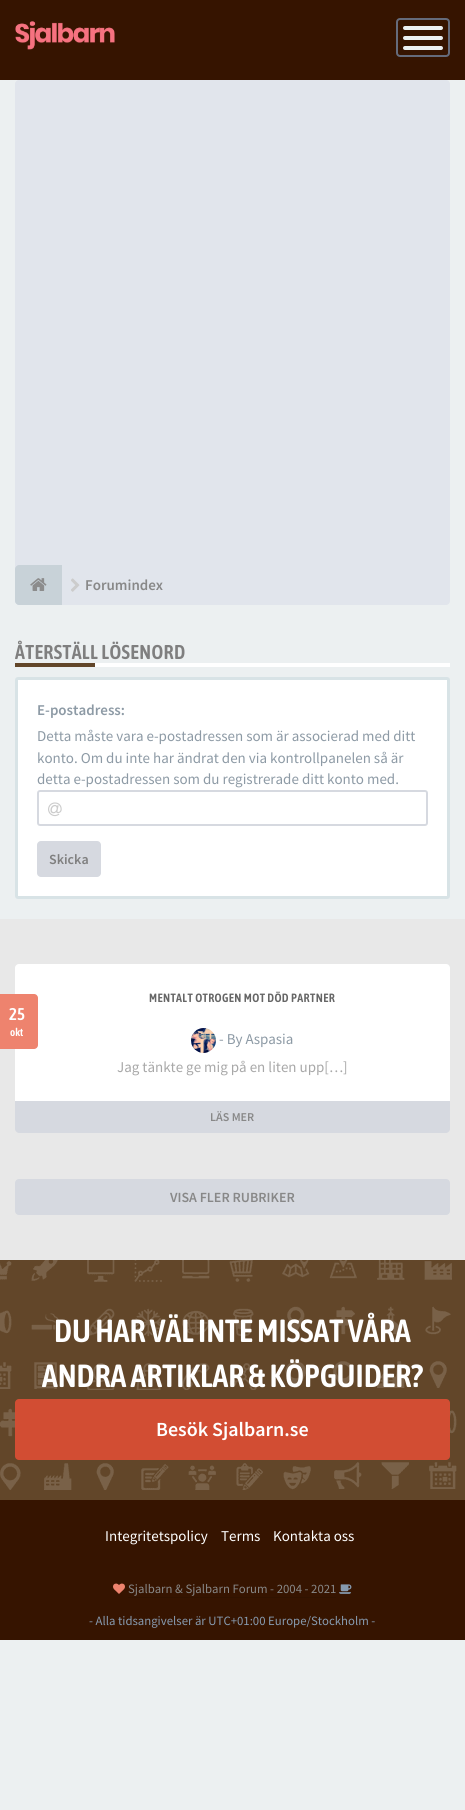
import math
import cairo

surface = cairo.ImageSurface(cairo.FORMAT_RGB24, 465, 1810)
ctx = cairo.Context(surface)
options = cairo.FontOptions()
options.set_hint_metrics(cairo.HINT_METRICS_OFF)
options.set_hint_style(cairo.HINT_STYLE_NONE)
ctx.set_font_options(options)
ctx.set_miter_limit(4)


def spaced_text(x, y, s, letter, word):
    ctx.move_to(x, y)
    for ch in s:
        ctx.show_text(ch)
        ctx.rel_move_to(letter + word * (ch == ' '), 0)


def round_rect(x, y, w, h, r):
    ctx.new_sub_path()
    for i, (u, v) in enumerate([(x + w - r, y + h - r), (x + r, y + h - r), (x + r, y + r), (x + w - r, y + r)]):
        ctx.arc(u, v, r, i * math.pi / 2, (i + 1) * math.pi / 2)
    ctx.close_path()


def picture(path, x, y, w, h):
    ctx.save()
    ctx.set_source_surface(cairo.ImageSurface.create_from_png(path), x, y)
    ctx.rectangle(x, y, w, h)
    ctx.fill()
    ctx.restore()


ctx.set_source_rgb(0.925, 0.941, 0.945)
ctx.paint()
ctx.set_source_rgb(0.212, 0.082, 0)
ctx.rectangle(0, 0, 465, 80)
ctx.fill()
picture("img1.png", 15, 21, 100, 29)
round_rect(397, 19, 52, 37, 3)
ctx.set_source_rgb(0.396, 0.42, 0.482)
ctx.stroke()
ctx.set_source_rgb(0.925, 0.941, 0.945)
round_rect(403, 36, 40, 4, 2)
ctx.fill()
round_rect(403, 26, 40, 4, 2)
ctx.fill()
round_rect(403, 46, 40, 4, 2)
ctx.fill()
ctx.set_source_rgb(0.882, 0.898, 0.922)
round_rect(15, 80, 435, 525, 4)
ctx.fill()
ctx.set_source_rgb(0.784, 0.824, 0.847)
ctx.new_path()
ctx.move_to(19, 565)
ctx.line_to(62, 565)
ctx.line_to(62, 605)
ctx.line_to(19, 605)
ctx.curve_to(17, 605, 15, 603, 15, 601)
ctx.line_to(15, 569)
ctx.curve_to(15, 567, 17, 565, 19, 565)
ctx.close_path()
ctx.fill()
picture("img2.png", 30, 578, 17, 13)
picture("img3.png", 71, 578, 9, 14)
ctx.select_font_face("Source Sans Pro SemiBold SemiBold")
ctx.set_font_size(15)
ctx.set_source_rgb(0.533, 0.533, 0.533)
ctx.move_to(85, 590)
ctx.show_text("Forumindex")
ctx.set_source_rgb(1, 1, 1)
ctx.rectangle(95, 663, 355, 4)
ctx.fill()
ctx.select_font_face("Asap Condensed SemiBold")
ctx.set_font_size(20)
ctx.set_source_rgb(0.498, 0.498, 0.498)
spaced_text(15, 659, "ÅTERSTÄLL LÖSENORD", 0.4, 0)
ctx.set_source_rgb(0.384, 0.275, 0.161)
ctx.rectangle(15, 663, 80, 4)
ctx.fill()
ctx.set_source_rgb(1, 1, 1)
round_rect(16.5, 678.5, 432, 219, 1.5)
ctx.fill_preserve()
ctx.set_source_rgb(0.847, 0.89, 0.902)
ctx.set_line_width(3)
ctx.stroke()
ctx.select_font_face("Source Sans Pro SemiBold SemiBold")
ctx.set_font_size(15)
ctx.set_source_rgb(0.553, 0.604, 0.647)
ctx.move_to(37, 715)
ctx.show_text("E-postadress:")
ctx.select_font_face("Source Sans Pro")
ctx.move_to(37, 741)
ctx.show_text("Detta måste vara e-postadressen som är associerad med ditt")
ctx.move_to(37, 763)
ctx.show_text("konto. Om du inte har ändrat den via kontrollpanelen så är")
ctx.move_to(37, 784)
ctx.show_text("detta e-postadressen som du registrerade ditt konto med.")
round_rect(38, 791, 389, 34, 2)
ctx.set_source_rgb(0.839, 0.851, 0.878)
ctx.set_line_width(2)
ctx.stroke()
picture("img4.png", 48, 802, 14, 15)
round_rect(37, 841, 64, 36, 4)
ctx.fill()
ctx.select_font_face("Source Sans Pro SemiBold SemiBold")
ctx.set_font_size(14)
ctx.set_source_rgb(0.498, 0.498, 0.498)
ctx.move_to(49, 864)
ctx.show_text("Skicka")
ctx.set_source_rgb(0.91, 0.91, 0.91)
ctx.rectangle(0, 919, 465, 341)
ctx.fill()
ctx.set_source_rgb(1, 1, 1)
round_rect(15, 964, 435, 160, 4)
ctx.fill()
ctx.set_source_rgb(0.933, 0.514, 0.431)
round_rect(-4, 994, 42, 55, 4)
ctx.fill()
ctx.select_font_face("Asap Condensed SemiBold")
ctx.set_font_size(17)
ctx.set_source_rgb(1, 1, 1)
ctx.move_to(9, 1020)
ctx.show_text("25")
ctx.set_font_size(11)
ctx.move_to(10, 1036)
ctx.show_text("okt")
ctx.set_font_size(12)
ctx.set_source_rgb(0.4, 0.4, 0.4)
spaced_text(149, 1002, "MENTALT OTROGEN MOT DÖD PARTNER", 0.4, 0)
picture("img5.png", 191, 1028, 25, 25)
ctx.select_font_face("Source Sans Pro")
ctx.set_font_size(15)
ctx.set_source_rgb(0.553, 0.604, 0.647)
ctx.move_to(219, 1044)
ctx.show_text("- By Aspasia")
ctx.set_source_rgb(0.659, 0.659, 0.659)
ctx.move_to(117, 1072)
ctx.show_text("Jag tänkte ge mig på en liten upp[…]")
ctx.set_source_rgb(0.839, 0.851, 0.878)
ctx.new_path()
ctx.move_to(15, 1101)
ctx.line_to(450, 1101)
ctx.line_to(450, 1129)
ctx.curve_to(450, 1131, 448, 1133, 446, 1133)
ctx.line_to(19, 1133)
ctx.curve_to(17, 1133, 15, 1131, 15, 1129)
ctx.close_path()
ctx.fill()
ctx.select_font_face("Source Sans Pro SemiBold SemiBold")
ctx.set_font_size(12)
ctx.set_source_rgb(0.533, 0.533, 0.533)
ctx.move_to(210, 1121)
ctx.show_text("LÄS MER")
ctx.set_source_rgb(0.839, 0.851, 0.878)
round_rect(15, 1179, 435, 36, 4)
ctx.fill()
ctx.set_font_size(14)
ctx.set_source_rgb(0.533, 0.533, 0.533)
ctx.move_to(170, 1202)
ctx.show_text("VISA FLER RUBRIKER")
ctx.set_source_rgb(0.384, 0.275, 0.161)
ctx.rectangle(0, 1260, 465, 240)
ctx.fill()
picture("img6.png", 0, 1260, 457, 230)
ctx.select_font_face("Asap Condensed SemiBold")
ctx.set_font_size(32)
ctx.set_source_rgb(1, 1, 1)
ctx.move_to(54, 1342)
ctx.show_text("DU HAR VÄL INTE MISSAT VÅRA")
ctx.move_to(42, 1387)
ctx.show_text("ANDRA ARTIKLAR & KÖPGUIDER?")
ctx.set_source_rgb(0.824, 0.302, 0.2)
round_rect(15, 1399, 435, 61, 4)
ctx.fill()
ctx.select_font_face("Source Sans Pro SemiBold SemiBold")
ctx.set_font_size(20)
ctx.set_source_rgb(1, 1, 1)
ctx.move_to(156, 1436)
ctx.show_text("Besök Sjalbarn.se")
ctx.set_source_rgb(0.212, 0.082, 0)
ctx.rectangle(0, 1500, 465, 140)
ctx.fill()
ctx.select_font_face("Source Sans Pro")
ctx.set_font_size(15)
ctx.set_source_rgb(1, 1, 1)
ctx.move_to(105, 1541)
ctx.show_text("Integritetspolicy")
ctx.move_to(221, 1541)
ctx.show_text("Terms")
ctx.move_to(273, 1541)
ctx.show_text("Kontakta oss")
picture("img7.png", 113, 1583, 12, 11)
ctx.set_font_size(12.75)
ctx.set_source_rgb(0.533, 0.533, 0.533)
ctx.move_to(128, 1593)
ctx.show_text("Sjalbarn & Sjalbarn Forum - 2004 - 2021")
ctx.set_source_rgb(0.192, 0.075, 0)
ctx.rectangle(128, 1597, 208, 1)
ctx.fill()
picture("img8.png", 339, 1584, 13, 10)
ctx.set_source_rgb(0.525, 0.604, 0.686)
ctx.move_to(89, 1625)
ctx.show_text("- Alla tidsangivelser är UTC+01:00 Europe/Stockholm -")
surface.write_to_png("page.png")
